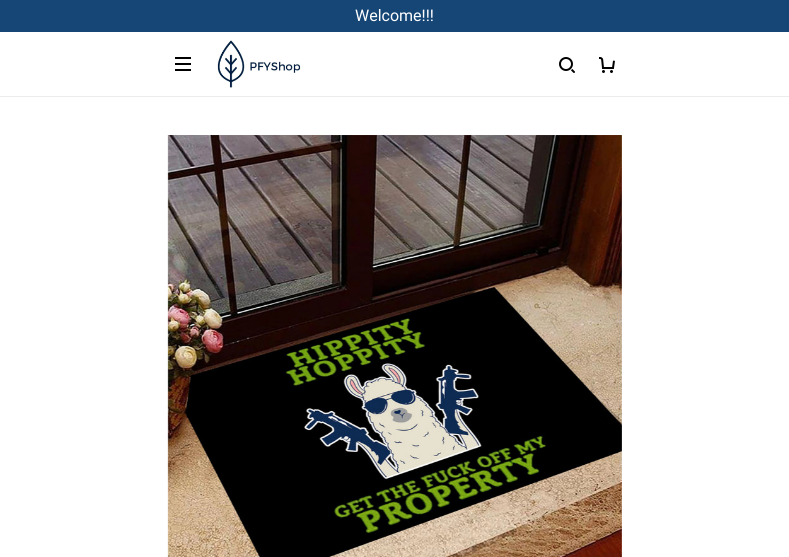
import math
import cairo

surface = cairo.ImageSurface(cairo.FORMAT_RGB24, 789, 557)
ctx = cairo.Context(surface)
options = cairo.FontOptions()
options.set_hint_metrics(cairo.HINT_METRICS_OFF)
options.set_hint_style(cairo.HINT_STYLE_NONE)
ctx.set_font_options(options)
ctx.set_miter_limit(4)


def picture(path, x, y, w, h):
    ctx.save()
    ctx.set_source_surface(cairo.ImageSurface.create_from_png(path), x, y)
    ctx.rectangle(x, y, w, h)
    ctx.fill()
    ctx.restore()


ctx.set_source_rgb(1, 1, 1)
ctx.paint()
ctx.set_source_rgb(0.086, 0.275, 0.463)
ctx.rectangle(0, 0, 789, 32)
ctx.fill()
ctx.select_font_face("Roboto")
ctx.set_font_size(16)
ctx.set_source_rgb(1, 1, 1)
ctx.move_to(355, 21)
ctx.show_text("Welcome!!!")
ctx.set_source_rgb(0.922, 0.922, 0.922)
ctx.rectangle(0, 96, 789, 1)
ctx.fill()
ctx.set_source_rgb(0, 0, 0)
ctx.rectangle(175, 57, 16, 2)
ctx.fill()
ctx.rectangle(175, 63, 16, 2)
ctx.fill()
ctx.rectangle(175, 69, 16, 2)
ctx.fill()
picture("img1.png", 217, 40, 84, 48)
picture("img2.png", 559, 57, 16, 16)
picture("img3.png", 599, 57, 16, 16)
picture("img4.png", 167, 135, 455, 422)
surface.write_to_png("page.png")
